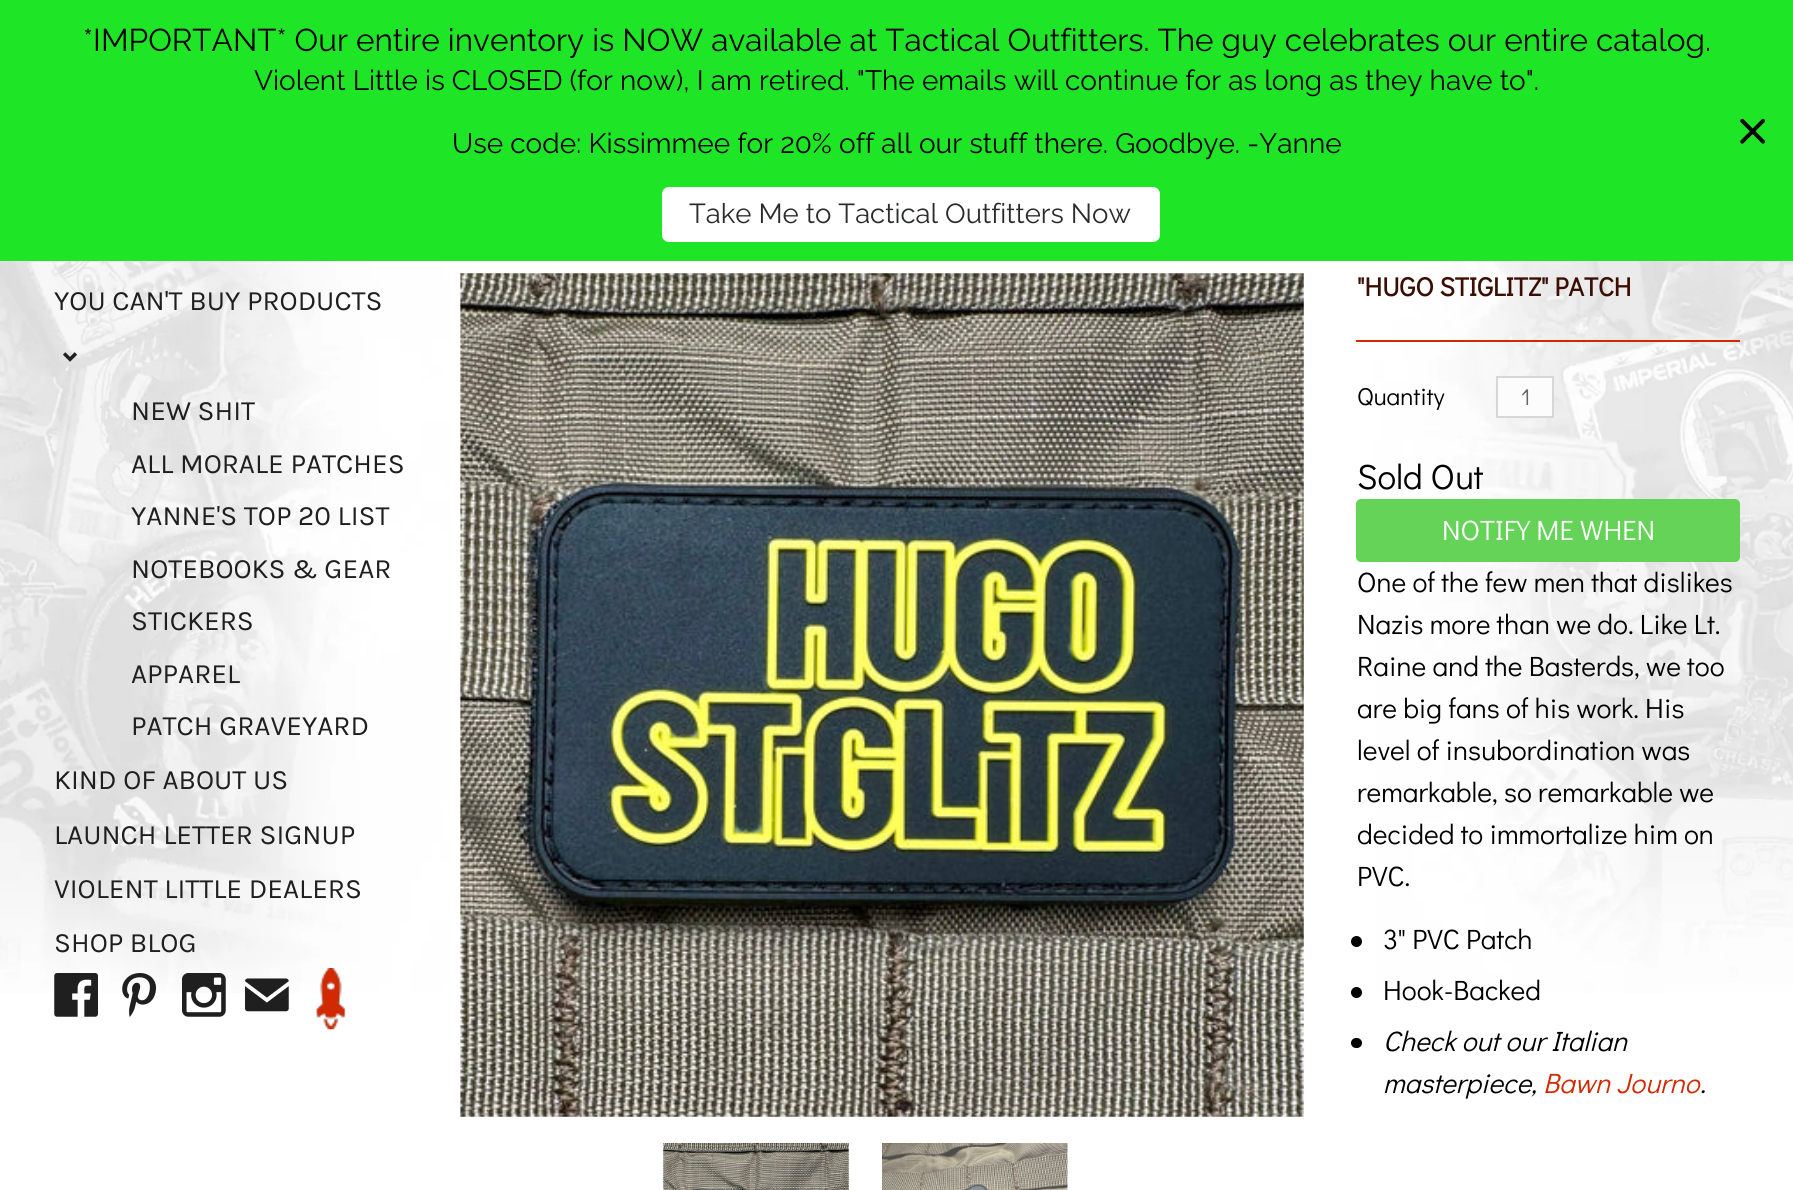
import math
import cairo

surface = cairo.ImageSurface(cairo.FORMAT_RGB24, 1793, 1190)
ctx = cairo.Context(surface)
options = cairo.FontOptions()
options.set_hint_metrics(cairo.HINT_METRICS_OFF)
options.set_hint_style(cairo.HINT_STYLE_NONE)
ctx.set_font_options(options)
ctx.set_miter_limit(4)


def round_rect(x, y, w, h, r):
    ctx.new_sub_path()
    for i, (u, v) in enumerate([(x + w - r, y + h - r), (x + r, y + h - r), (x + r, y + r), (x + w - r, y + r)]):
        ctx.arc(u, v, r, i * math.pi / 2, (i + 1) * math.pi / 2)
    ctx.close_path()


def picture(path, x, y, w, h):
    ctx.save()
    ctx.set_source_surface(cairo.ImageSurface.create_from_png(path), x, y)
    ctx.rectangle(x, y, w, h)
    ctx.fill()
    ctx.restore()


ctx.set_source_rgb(1, 1, 1)
ctx.paint()
picture("img1.png", 0, 261, 1793, 732)
ctx.set_source_rgb(0.118, 0.902, 0.149)
ctx.rectangle(0, 0, 1793, 261)
ctx.fill()
ctx.select_font_face("Raleway Thin")
ctx.set_font_size(31.5)
ctx.set_source_rgb(0, 0, 0)
ctx.move_to(83, 51)
ctx.show_text("*IMPORTANT* Our entire inventory is NOW available at Tactical Outfitters. The guy celebrates our entire catalog.")
ctx.set_font_size(28)
ctx.move_to(254, 90)
ctx.show_text("Violent Little is CLOSED (for now), I am retired. \"The emails will continue for as long as they have to\".")
ctx.move_to(452, 153)
ctx.show_text("Use code: Kissimmee for 20% off all our stuff there. Goodbye. -Yanne")
ctx.set_source_rgb(1, 1, 1)
round_rect(662, 187, 498, 55, 7)
ctx.fill()
ctx.set_font_size(27.5)
ctx.set_source_rgb(0.165, 0.173, 0.169)
ctx.move_to(689, 223)
ctx.show_text("Take Me to Tactical Outfitters Now")
picture("img2.png", 1740, 118, 25, 26)
ctx.select_font_face("Karla")
ctx.set_font_size(28)
ctx.set_source_rgb(0.122, 0.122, 0.122)
ctx.move_to(54, 310)
ctx.show_text("YOU CAN'T BUY PRODUCTS")
picture("img3.png", 63, 352, 14, 10)
ctx.move_to(131, 420)
ctx.show_text("NEW SHIT")
ctx.move_to(131, 473)
ctx.show_text("ALL MORALE PATCHES")
ctx.move_to(131, 525)
ctx.show_text("YANNE'S TOP 20 LIST")
ctx.move_to(131, 578)
ctx.show_text("NOTEBOOKS & GEAR")
ctx.move_to(131, 630)
ctx.show_text("STICKERS")
ctx.move_to(131, 683)
ctx.show_text("APPAREL")
ctx.move_to(131, 735)
ctx.show_text("PATCH GRAVEYARD")
ctx.move_to(54, 789)
ctx.show_text("KIND OF ABOUT US")
ctx.move_to(54, 844)
ctx.show_text("LAUNCH LETTER SIGNUP")
ctx.move_to(54, 898)
ctx.show_text("VIOLENT LITTLE DEALERS")
ctx.move_to(54, 952)
ctx.show_text("SHOP BLOG")
picture("img4.png", 54, 973, 44, 44)
picture("img5.png", 122, 973, 35, 44)
picture("img6.png", 182, 973, 44, 44)
picture("img7.png", 245, 978, 44, 34)
picture("img8.png", 316, 968, 30, 62)
picture("img9.png", 460, 273, 844, 844)
picture("img10.png", 663, 1143, 186, 47)
picture("img11.png", 882, 1143, 186, 47)
ctx.select_font_face("Didact Gothic", cairo.FONT_SLANT_NORMAL, cairo.FONT_WEIGHT_BOLD)
ctx.set_font_size(26.25)
ctx.set_source_rgb(0.235, 0.055, 0.012)
ctx.move_to(1357, 296)
ctx.show_text("\"HUGO STIGLITZ\" PATCH")
ctx.set_source_rgb(0.82, 0.161, 0.004)
ctx.rectangle(1356, 340, 384, 2)
ctx.fill()
ctx.select_font_face("Didact Gothic")
ctx.set_font_size(24.5)
ctx.set_source_rgb(0, 0, 0)
ctx.move_to(1357, 405)
ctx.show_text("Quantity")
ctx.set_source_rgb(0.988, 0.988, 0.988)
ctx.rectangle(1497, 377, 56, 40)
ctx.fill_preserve()
ctx.set_source_rgb(0.843, 0.843, 0.843)
ctx.stroke()
ctx.set_font_size(23)
ctx.set_source_rgb(0.4, 0.4, 0.4)
ctx.move_to(1521, 405)
ctx.show_text("1")
ctx.set_font_size(35)
ctx.set_source_rgb(0, 0, 0)
ctx.move_to(1357, 489)
ctx.show_text("Sold Out")
ctx.set_source_rgb(0.392, 0.827, 0.341)
round_rect(1356, 499, 384, 63, 5)
ctx.fill()
ctx.set_font_size(28)
ctx.set_source_rgb(1, 1, 1)
ctx.move_to(1442, 540)
ctx.show_text("NOTIFY ME WHEN")
ctx.set_source_rgb(0, 0, 0)
ctx.move_to(1357, 592)
ctx.show_text("One of the few men that dislikes")
ctx.move_to(1357, 634)
ctx.show_text("Nazis more than we do. Like Lt.")
ctx.move_to(1357, 676)
ctx.show_text("Raine and the Basterds, we too")
ctx.move_to(1357, 718)
ctx.show_text("are big fans of his work. His")
ctx.move_to(1357, 760)
ctx.show_text("level of insubordination was")
ctx.move_to(1357, 802)
ctx.show_text("remarkable, so remarkable we")
ctx.move_to(1357, 844)
ctx.show_text("decided to immortalize him on")
ctx.move_to(1357, 886)
ctx.show_text("PVC.")
ctx.new_path()
ctx.arc(1356.5, 941.5, 5.5, 0, 2 * math.pi)
ctx.fill()
ctx.move_to(1383, 949)
ctx.show_text("3\" PVC Patch")
ctx.new_path()
ctx.arc(1356.5, 992.5, 5.5, 0, 2 * math.pi)
ctx.fill()
ctx.move_to(1383, 1000)
ctx.show_text("Hook-Backed")
round_rect(1351, 1038, 11, 10, 5)
ctx.fill()
ctx.select_font_face("Didact Gothic", cairo.FONT_SLANT_ITALIC)
ctx.move_to(1383, 1051)
ctx.show_text("Check out our Italian")
ctx.move_to(1383, 1093)
ctx.show_text("masterpiece,")
ctx.set_source_rgb(0.82, 0.161, 0.004)
ctx.move_to(1543, 1093)
ctx.show_text("Bawn Journo")
ctx.set_source_rgb(0, 0, 0)
ctx.move_to(1700, 1093)
ctx.show_text(".")
surface.write_to_png("page.png")
